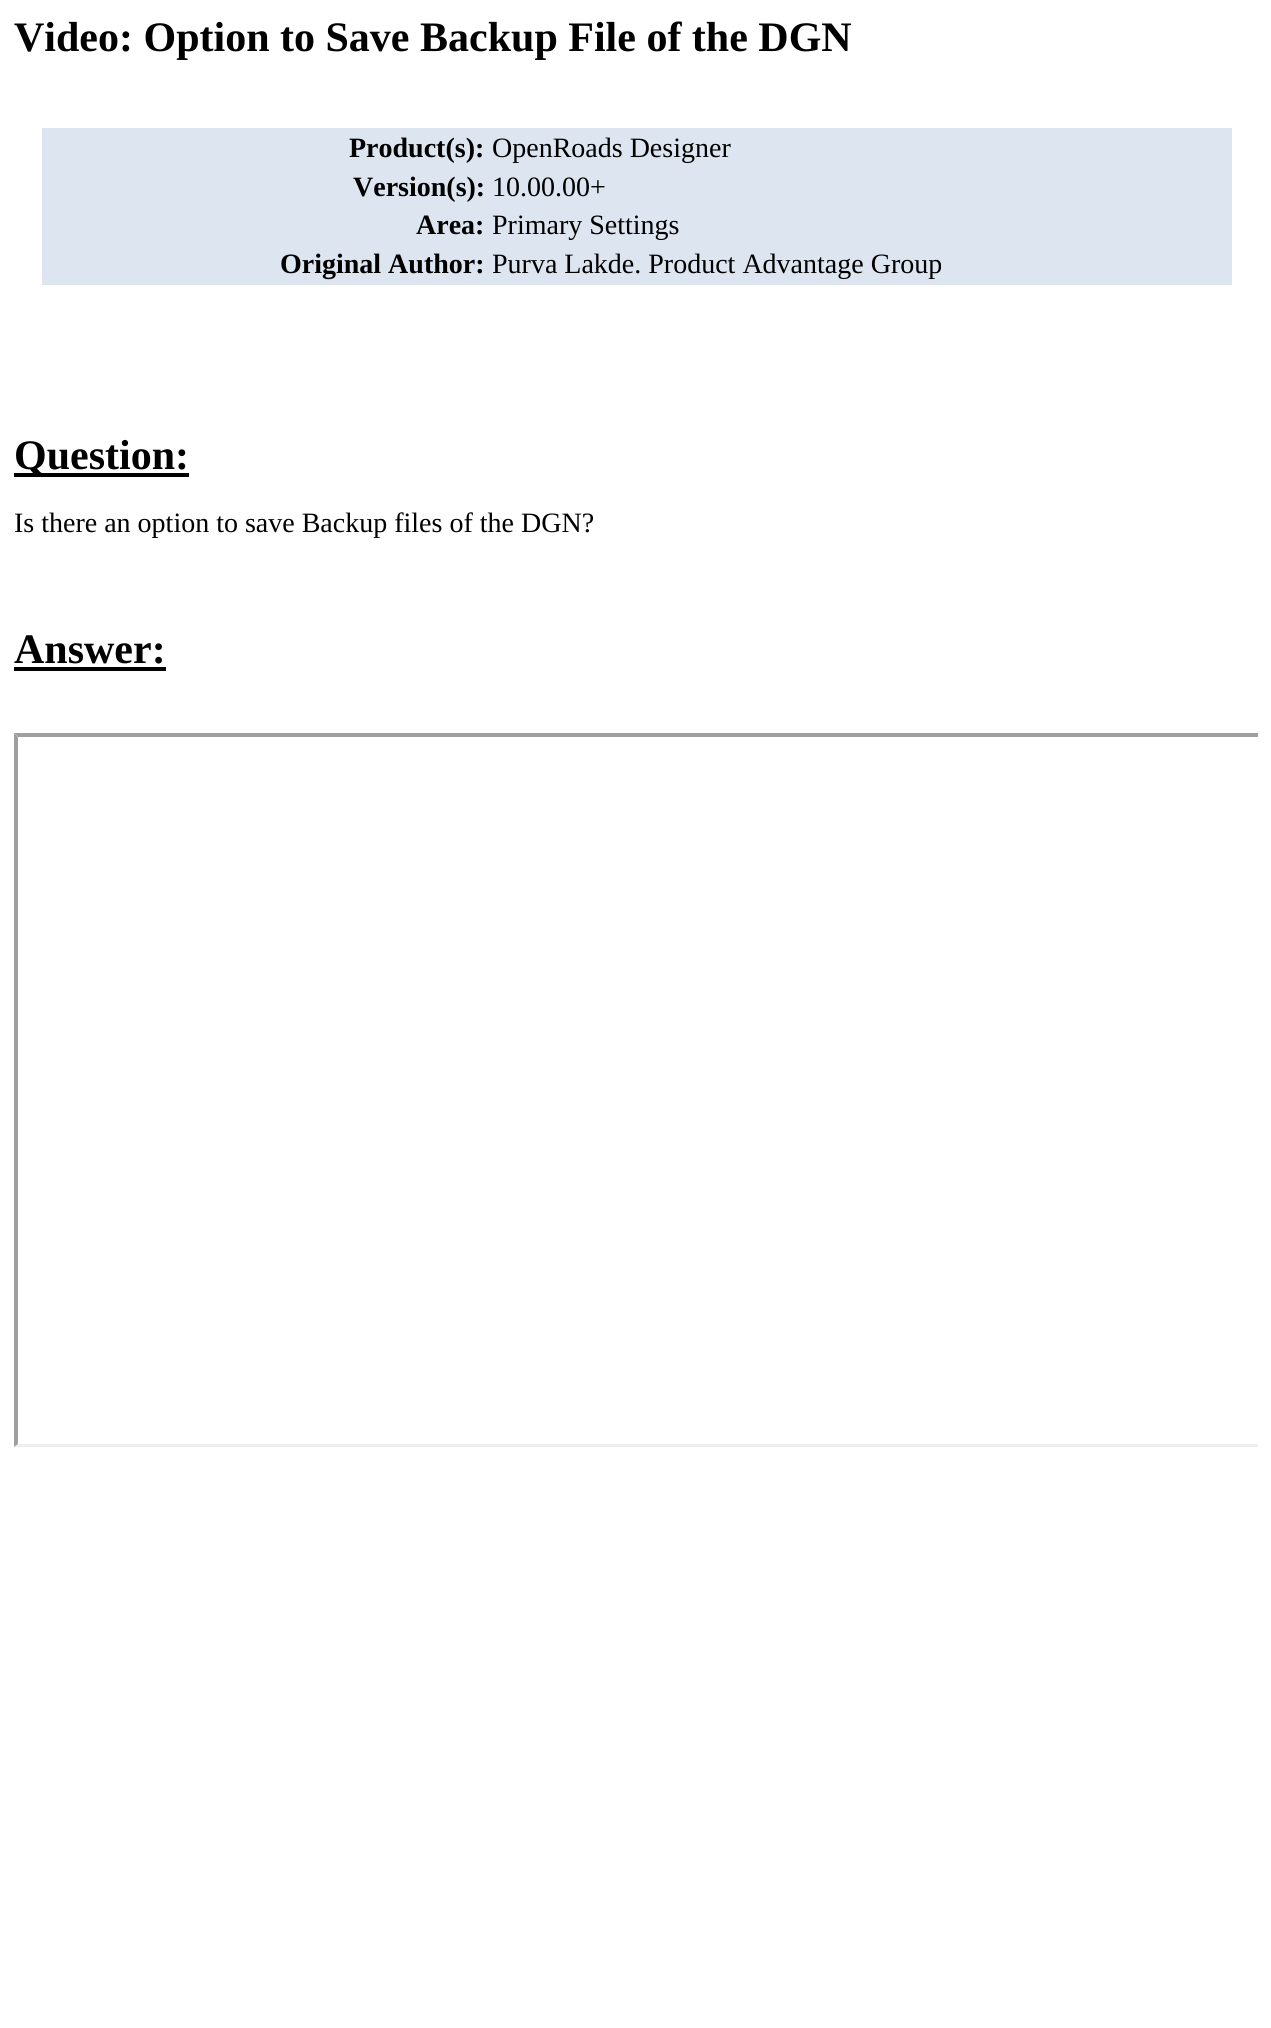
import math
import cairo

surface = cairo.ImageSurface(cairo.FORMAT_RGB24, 1271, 2028)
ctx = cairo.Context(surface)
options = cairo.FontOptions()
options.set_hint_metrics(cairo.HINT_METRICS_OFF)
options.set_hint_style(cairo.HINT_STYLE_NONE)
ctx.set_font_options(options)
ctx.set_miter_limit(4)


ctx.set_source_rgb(1, 1, 1)
ctx.paint()
ctx.select_font_face("Liberation Serif", cairo.FONT_SLANT_NORMAL, cairo.FONT_WEIGHT_BOLD)
ctx.set_font_size(42)
ctx.set_source_rgb(0, 0, 0)
ctx.move_to(14, 51)
ctx.show_text("Video: Option to Save Backup File of the DGN")
ctx.set_source_rgb(0.863, 0.898, 0.941)
ctx.rectangle(42, 128, 1190, 157)
ctx.fill()
ctx.set_font_size(28)
ctx.set_source_rgb(0, 0, 0)
ctx.move_to(349, 157)
ctx.show_text("Product(s):")
ctx.select_font_face("Liberation Serif")
ctx.move_to(492, 157)
ctx.show_text("OpenRoads Designer")
ctx.select_font_face("Liberation Serif", cairo.FONT_SLANT_NORMAL, cairo.FONT_WEIGHT_BOLD)
ctx.move_to(353, 196)
ctx.show_text("Version(s):")
ctx.select_font_face("Liberation Serif")
ctx.move_to(492, 196)
ctx.show_text("10.00.00+")
ctx.select_font_face("Liberation Serif", cairo.FONT_SLANT_NORMAL, cairo.FONT_WEIGHT_BOLD)
ctx.move_to(416, 234)
ctx.show_text("Area:")
ctx.select_font_face("Liberation Serif")
ctx.move_to(492, 234)
ctx.show_text("Primary Settings")
ctx.select_font_face("Liberation Serif", cairo.FONT_SLANT_NORMAL, cairo.FONT_WEIGHT_BOLD)
ctx.move_to(280, 273)
ctx.show_text("Original Author:")
ctx.select_font_face("Liberation Serif")
ctx.move_to(492, 273)
ctx.show_text("Purva Lakde. Product Advantage Group")
ctx.rectangle(14, 473, 175, 4)
ctx.fill()
ctx.select_font_face("Liberation Serif", cairo.FONT_SLANT_NORMAL, cairo.FONT_WEIGHT_BOLD)
ctx.set_font_size(42)
ctx.move_to(14, 469)
ctx.show_text("Question:")
ctx.select_font_face("Liberation Serif")
ctx.set_font_size(28)
ctx.move_to(14, 532)
ctx.show_text("Is there an option to save Backup files of the DGN?")
ctx.select_font_face("Liberation Serif", cairo.FONT_SLANT_NORMAL, cairo.FONT_WEIGHT_BOLD)
ctx.set_font_size(42)
ctx.move_to(14, 663)
ctx.show_text("Answer:")
ctx.rectangle(14, 667, 152, 4)
ctx.fill()
ctx.save()
ctx.rectangle(14, 128, 1244, 1379)
ctx.clip()
ctx.set_source_rgb(0.624, 0.624, 0.624)
ctx.new_path()
ctx.move_to(14, 733)
ctx.line_to(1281, 733)
ctx.line_to(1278, 737)
ctx.line_to(18, 737)
ctx.close_path()
ctx.fill()
ctx.set_source_rgb(0.933, 0.933, 0.933)
ctx.new_path()
ctx.move_to(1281, 1447)
ctx.line_to(14, 1447)
ctx.line_to(18, 1444)
ctx.line_to(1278, 1444)
ctx.close_path()
ctx.fill()
ctx.restore()
ctx.set_source_rgb(0.624, 0.624, 0.624)
ctx.new_path()
ctx.move_to(14, 1447)
ctx.line_to(14, 733)
ctx.line_to(18, 737)
ctx.line_to(18, 1444)
ctx.close_path()
ctx.fill()
surface.write_to_png("page.png")
